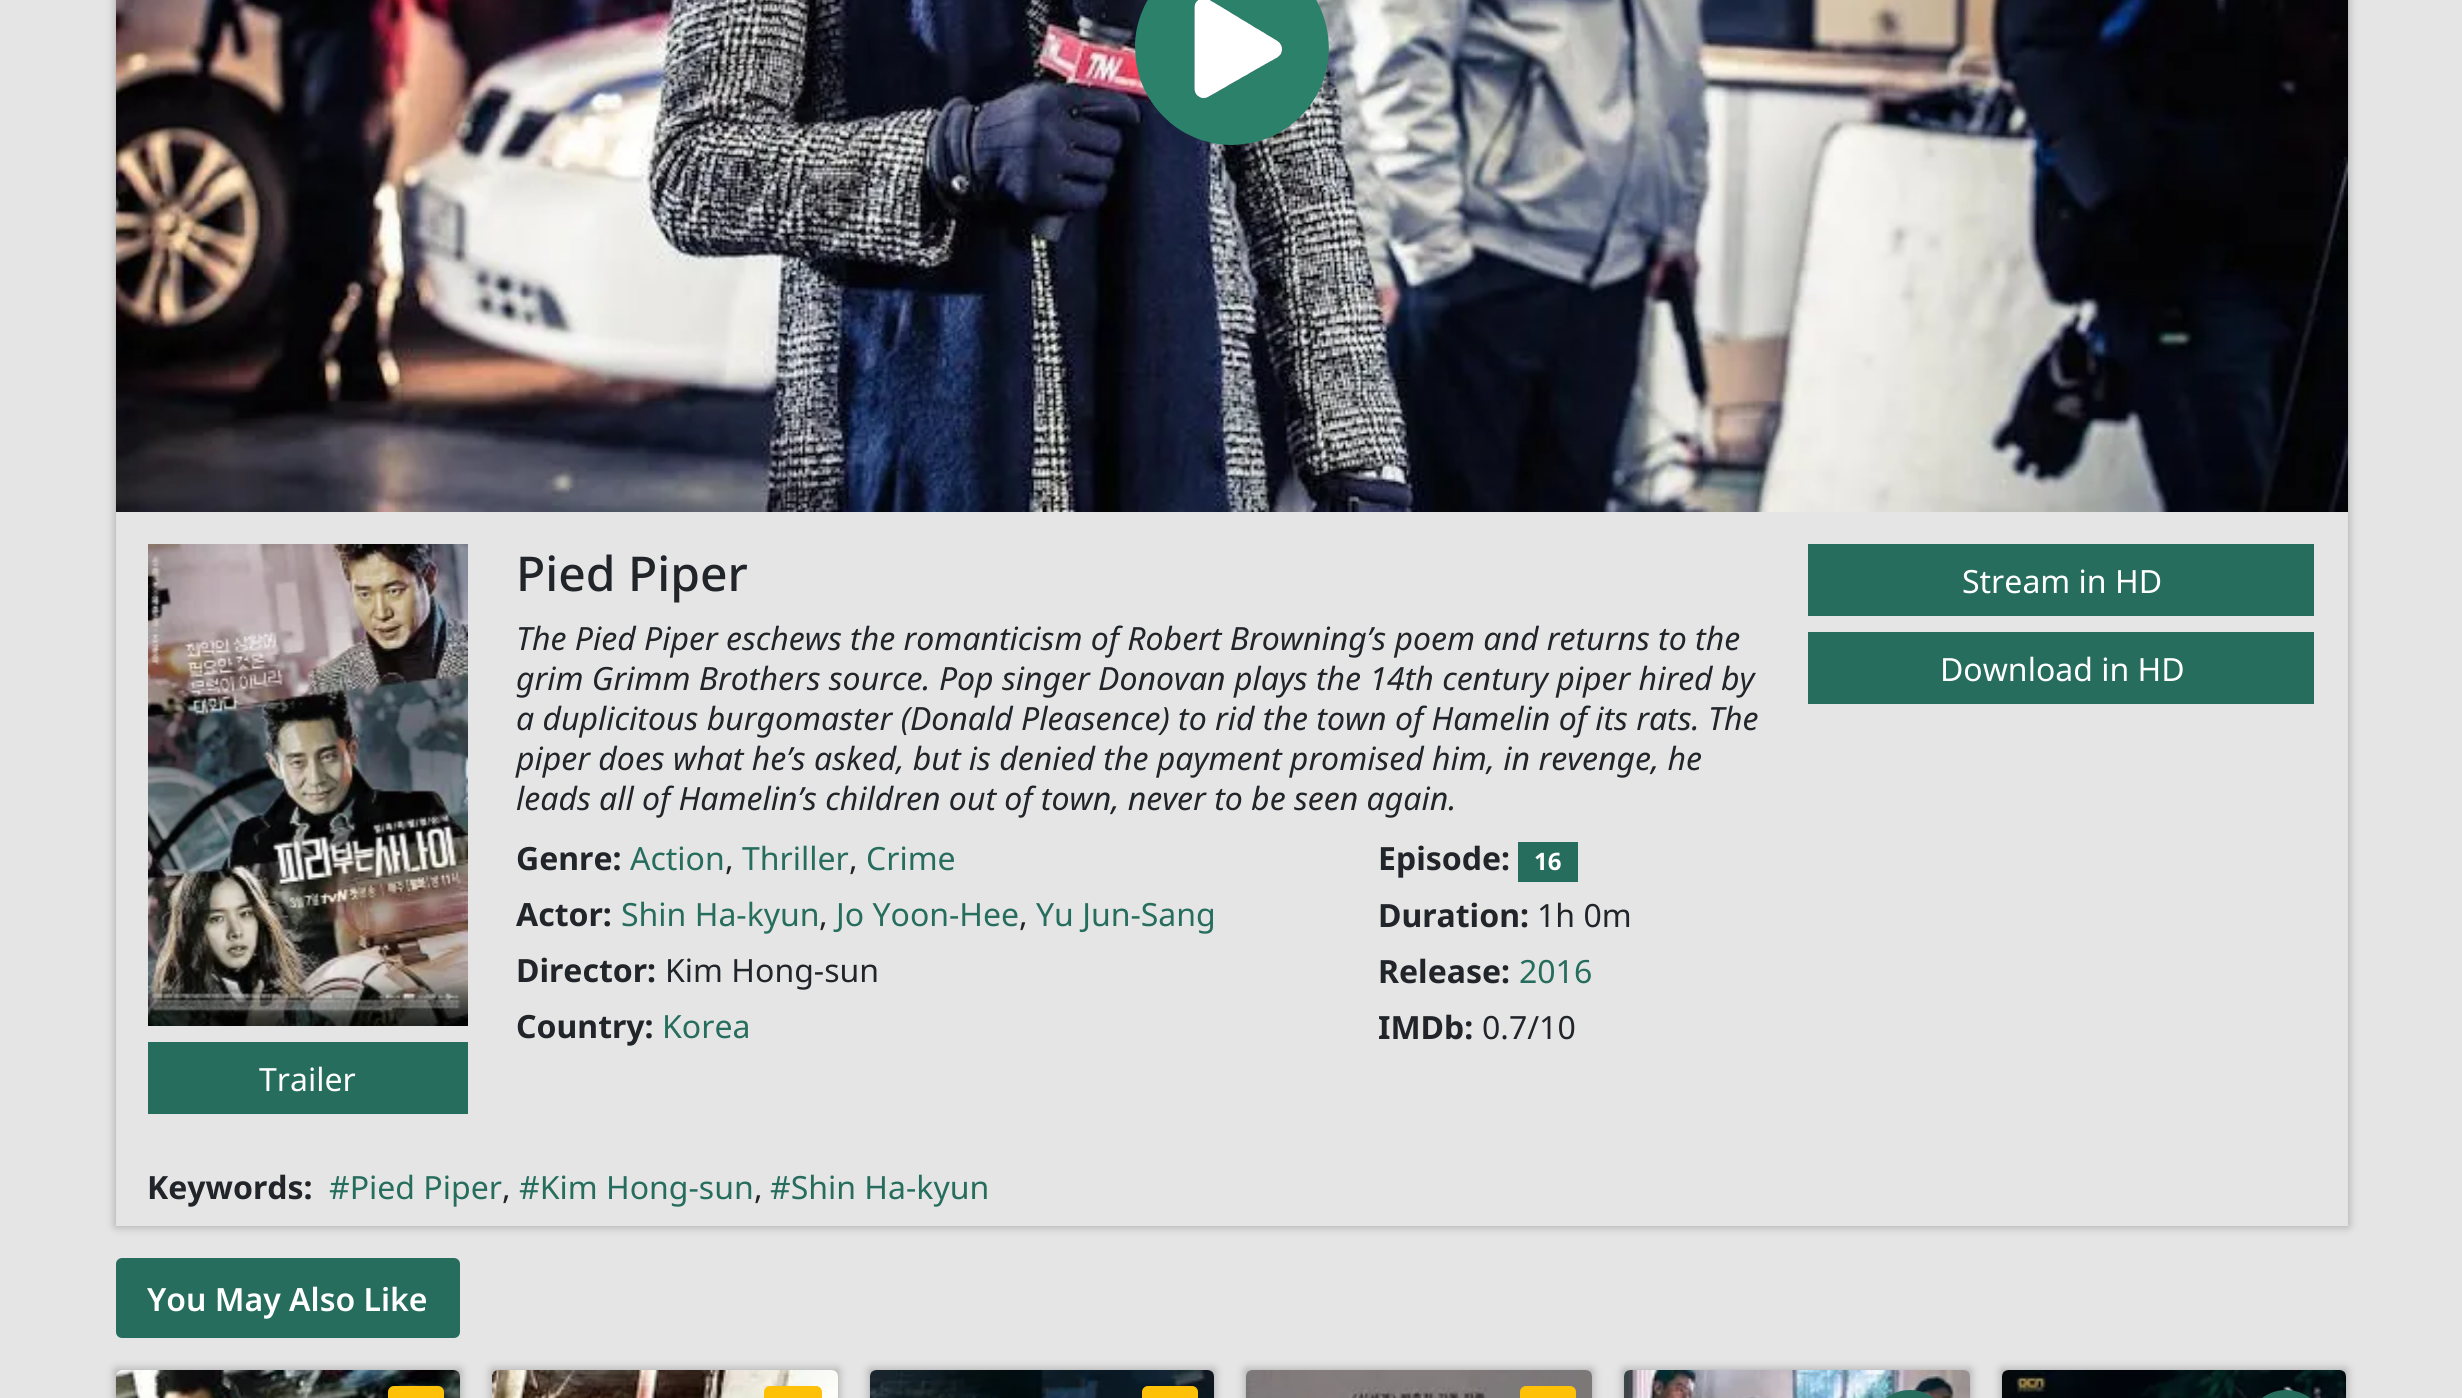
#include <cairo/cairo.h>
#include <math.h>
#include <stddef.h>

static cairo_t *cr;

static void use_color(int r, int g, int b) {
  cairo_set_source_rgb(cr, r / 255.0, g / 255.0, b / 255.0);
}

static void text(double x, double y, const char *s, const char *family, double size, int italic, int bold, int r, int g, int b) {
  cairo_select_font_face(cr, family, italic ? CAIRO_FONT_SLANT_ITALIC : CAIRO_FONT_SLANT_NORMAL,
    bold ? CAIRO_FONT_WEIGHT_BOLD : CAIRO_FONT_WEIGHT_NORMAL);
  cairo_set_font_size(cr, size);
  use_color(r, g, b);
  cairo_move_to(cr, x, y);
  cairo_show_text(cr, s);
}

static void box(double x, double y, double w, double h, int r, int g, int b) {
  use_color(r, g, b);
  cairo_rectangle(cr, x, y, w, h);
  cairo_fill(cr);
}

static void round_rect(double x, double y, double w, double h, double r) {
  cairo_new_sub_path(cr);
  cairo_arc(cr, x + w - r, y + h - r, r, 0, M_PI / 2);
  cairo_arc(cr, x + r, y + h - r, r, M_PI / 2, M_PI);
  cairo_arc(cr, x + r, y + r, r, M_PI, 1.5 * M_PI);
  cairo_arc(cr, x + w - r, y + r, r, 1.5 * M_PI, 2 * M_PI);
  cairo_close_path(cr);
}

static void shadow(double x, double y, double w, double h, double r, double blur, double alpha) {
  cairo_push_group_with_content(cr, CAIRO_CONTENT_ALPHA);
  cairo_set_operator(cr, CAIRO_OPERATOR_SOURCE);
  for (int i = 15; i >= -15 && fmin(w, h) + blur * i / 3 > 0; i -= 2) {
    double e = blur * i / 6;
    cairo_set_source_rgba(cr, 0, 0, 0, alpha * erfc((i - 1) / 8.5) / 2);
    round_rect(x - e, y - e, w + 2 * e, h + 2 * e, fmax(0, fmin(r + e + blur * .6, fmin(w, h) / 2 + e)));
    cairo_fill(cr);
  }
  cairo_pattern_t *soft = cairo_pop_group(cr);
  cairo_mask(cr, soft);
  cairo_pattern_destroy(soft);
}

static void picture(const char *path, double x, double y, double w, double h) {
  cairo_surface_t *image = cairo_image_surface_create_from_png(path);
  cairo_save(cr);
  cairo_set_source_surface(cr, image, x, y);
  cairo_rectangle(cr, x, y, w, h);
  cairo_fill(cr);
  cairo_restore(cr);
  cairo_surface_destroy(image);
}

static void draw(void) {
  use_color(229, 229, 229);
  cairo_paint(cr);
  cairo_save(cr);
  cairo_set_fill_rule(cr, CAIRO_FILL_RULE_EVEN_ODD);
  cairo_new_path(cr);
  cairo_move_to(cr, 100, 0);
  cairo_line_to(cr, 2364, 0);
  cairo_line_to(cr, 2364, 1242);
  cairo_line_to(cr, 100, 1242);
  cairo_close_path(cr);
  cairo_move_to(cr, 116, -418);
  cairo_line_to(cr, 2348, -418);
  cairo_line_to(cr, 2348, 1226);
  cairo_line_to(cr, 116, 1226);
  cairo_close_path(cr);
  cairo_clip(cr);
  use_color(0, 0, 0);
  shadow(116, -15, 2232, 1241, 0, 5, 0.3);
  cairo_restore(cr);
  picture("img_01.png", 116, 0, 2232, 512);
  picture("img_02.png", 1135, 0, 194, 145);
  box(1518, 842, 60, 40, 38, 109, 93);
  box(1808, 544, 506, 72, 38, 109, 93);
  box(1808, 632, 506, 72, 38, 109, 93);
  picture("img_03.png", 148, 544, 320, 482);
  box(148, 1042, 320, 72, 38, 109, 93);
  round_rect(116, 1258, 344, 80, 6);
  cairo_fill(cr);
  use_color(0, 0, 0);
  shadow(116, 1370, 344, 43, 0, 5, 0.3);
  picture("img_04.png", 116, 1370, 344, 28);
  use_color(255, 193, 7);
  round_rect(388, 1386, 56, 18, 6);
  cairo_fill(cr);
  use_color(0, 0, 0);
  shadow(492, 1370, 346, 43, 0, 5, 0.3);
  picture("img_05.png", 492, 1370, 346, 28);
  use_color(255, 193, 7);
  round_rect(764, 1386, 58, 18, 6);
  cairo_fill(cr);
  use_color(0, 0, 0);
  shadow(870, 1370, 344, 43, 0, 5, 0.3);
  picture("img_06.png", 870, 1370, 344, 28);
  use_color(255, 193, 7);
  round_rect(1142, 1386, 56, 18, 6);
  cairo_fill(cr);
  use_color(0, 0, 0);
  shadow(1246, 1370, 346, 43, 0, 5, 0.3);
  picture("img_07.png", 1246, 1370, 346, 28);
  use_color(255, 193, 7);
  round_rect(1520, 1386, 56, 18, 6);
  cairo_fill(cr);
  use_color(0, 0, 0);
  shadow(1624, 1370, 346, 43, 0, 5, 0.3);
  picture("img_08.png", 1624, 1370, 346, 28);
  use_color(38, 109, 93);
  round_rect(1870, 1390, 80, 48, 40);
  cairo_fill(cr);
  use_color(0, 0, 0);
  shadow(2002, 1370, 344, 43, 0, 5, 0.3);
  picture("img_09.png", 2002, 1370, 344, 28);
  use_color(38, 109, 93);
  round_rect(2246, 1390, 80, 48, 40);
  cairo_fill(cr);
  text(516, 591, "Pied Piper", "Noto Sans Medium", 48, 0, 0, 33, 37, 41);
  text(516, 650, "The Pied Piper eschews the romanticism of Robert Browning’s poem and returns to the", "Noto Sans", 32, 1, 0, 33, 37, 41);
  text(516, 690, "grim Grimm Brothers source. Pop singer Donovan plays the 14th century piper hired by", "Noto Sans", 32, 1, 0, 33, 37, 41);
  text(516, 730, "a duplicitous burgomaster (Donald Pleasence) to rid the town of Hamelin of its rats. The", "Noto Sans", 32, 1, 0, 33, 37, 41);
  text(516, 770, "piper does what he’s asked, but is denied the payment promised him, in revenge, he", "Noto Sans", 32, 1, 0, 33, 37, 41);
  text(516, 810, "leads all of Hamelin’s children out of town, never to be seen again.", "Noto Sans", 32, 1, 0, 33, 37, 41);
  text(516, 870, "Genre:", "Noto Sans", 32, 0, 1, 33, 37, 41);
  text(630, 870, "Action", "Noto Sans", 32, 0, 0, 38, 109, 93);
  text(725, 870, ",", "Noto Sans", 32, 0, 0, 33, 37, 41);
  text(742, 870, "Thriller", "Noto Sans", 32, 0, 0, 38, 109, 93);
  text(849, 870, ",", "Noto Sans", 32, 0, 0, 33, 37, 41);
  text(866, 870, "Crime", "Noto Sans", 32, 0, 0, 38, 109, 93);
  text(516, 926, "Actor:", "Noto Sans", 32, 0, 1, 33, 37, 41);
  text(621, 926, "Shin Ha-kyun", "Noto Sans", 32, 0, 0, 38, 109, 93);
  text(819, 926, ",", "Noto Sans", 32, 0, 0, 33, 37, 41);
  text(836, 926, "Jo Yoon-Hee", "Noto Sans", 32, 0, 0, 38, 109, 93);
  text(1019, 926, ",", "Noto Sans", 32, 0, 0, 33, 37, 41);
  text(1036, 926, "Yu Jun-Sang", "Noto Sans", 32, 0, 0, 38, 109, 93);
  text(516, 982, "Director:", "Noto Sans", 32, 0, 1, 33, 37, 41);
  text(665, 982, "Kim Hong-sun", "Noto Sans", 32, 0, 0, 33, 37, 41);
  text(516, 1038, "Country:", "Noto Sans", 32, 0, 1, 33, 37, 41);
  text(662, 1038, "Korea", "Noto Sans", 32, 0, 0, 38, 109, 93);
  text(1378, 870, "Episode:", "Noto Sans", 32, 0, 1, 33, 37, 41);
  text(1534, 870, "16", "Noto Sans", 24, 0, 1, 255, 255, 255);
  text(1378, 927, "Duration:", "Noto Sans", 32, 0, 1, 33, 37, 41);
  text(1537, 927, "1h 0m", "Noto Sans", 32, 0, 0, 33, 37, 41);
  text(1378, 983, "Release:", "Noto Sans", 32, 0, 1, 33, 37, 41);
  text(1519, 983, "2016", "Noto Sans", 32, 0, 0, 38, 109, 93);
  text(1378, 1039, "IMDb:", "Noto Sans", 32, 0, 1, 33, 37, 41);
  text(1482, 1039, "0.7/10", "Noto Sans", 32, 0, 0, 33, 37, 41);
  text(1962, 593, "Stream in HD", "Noto Sans", 32, 0, 0, 255, 255, 255);
  text(1940, 681, "Download in HD", "Noto Sans", 32, 0, 0, 255, 255, 255);
  text(259, 1091, "Trailer", "Noto Sans", 32, 0, 0, 255, 255, 255);
  text(147, 1199, "Keywords:", "Noto Sans", 32, 0, 1, 33, 37, 41);
  text(329, 1199, "#Pied Piper", "Noto Sans", 32, 0, 0, 38, 109, 93);
  text(502, 1199, ",", "Noto Sans", 32, 0, 0, 33, 37, 41);
  text(519, 1199, "#Kim Hong-sun", "Noto Sans", 32, 0, 0, 38, 109, 93);
  text(754, 1199, ",", "Noto Sans", 32, 0, 0, 33, 37, 41);
  text(770, 1199, "#Shin Ha-kyun", "Noto Sans", 32, 0, 0, 38, 109, 93);
  text(147, 1311, "You May Also Like", "Noto Sans SemiBold", 32, 0, 0, 255, 255, 255);
}

int main(void) {
  cairo_surface_t *surface = cairo_image_surface_create(CAIRO_FORMAT_RGB24, 2462, 1398);
  cr = cairo_create(surface);
  cairo_font_options_t *options = cairo_font_options_create();
  cairo_font_options_set_hint_metrics(options, CAIRO_HINT_METRICS_OFF);
  cairo_font_options_set_hint_style(options, CAIRO_HINT_STYLE_NONE);
  cairo_set_font_options(cr, options);
  cairo_set_miter_limit(cr, 4);
  draw();
  cairo_surface_write_to_png(surface, "out.png");
  cairo_font_options_destroy(options);
  cairo_destroy(cr);
  cairo_surface_destroy(surface);
  return 0;
}
